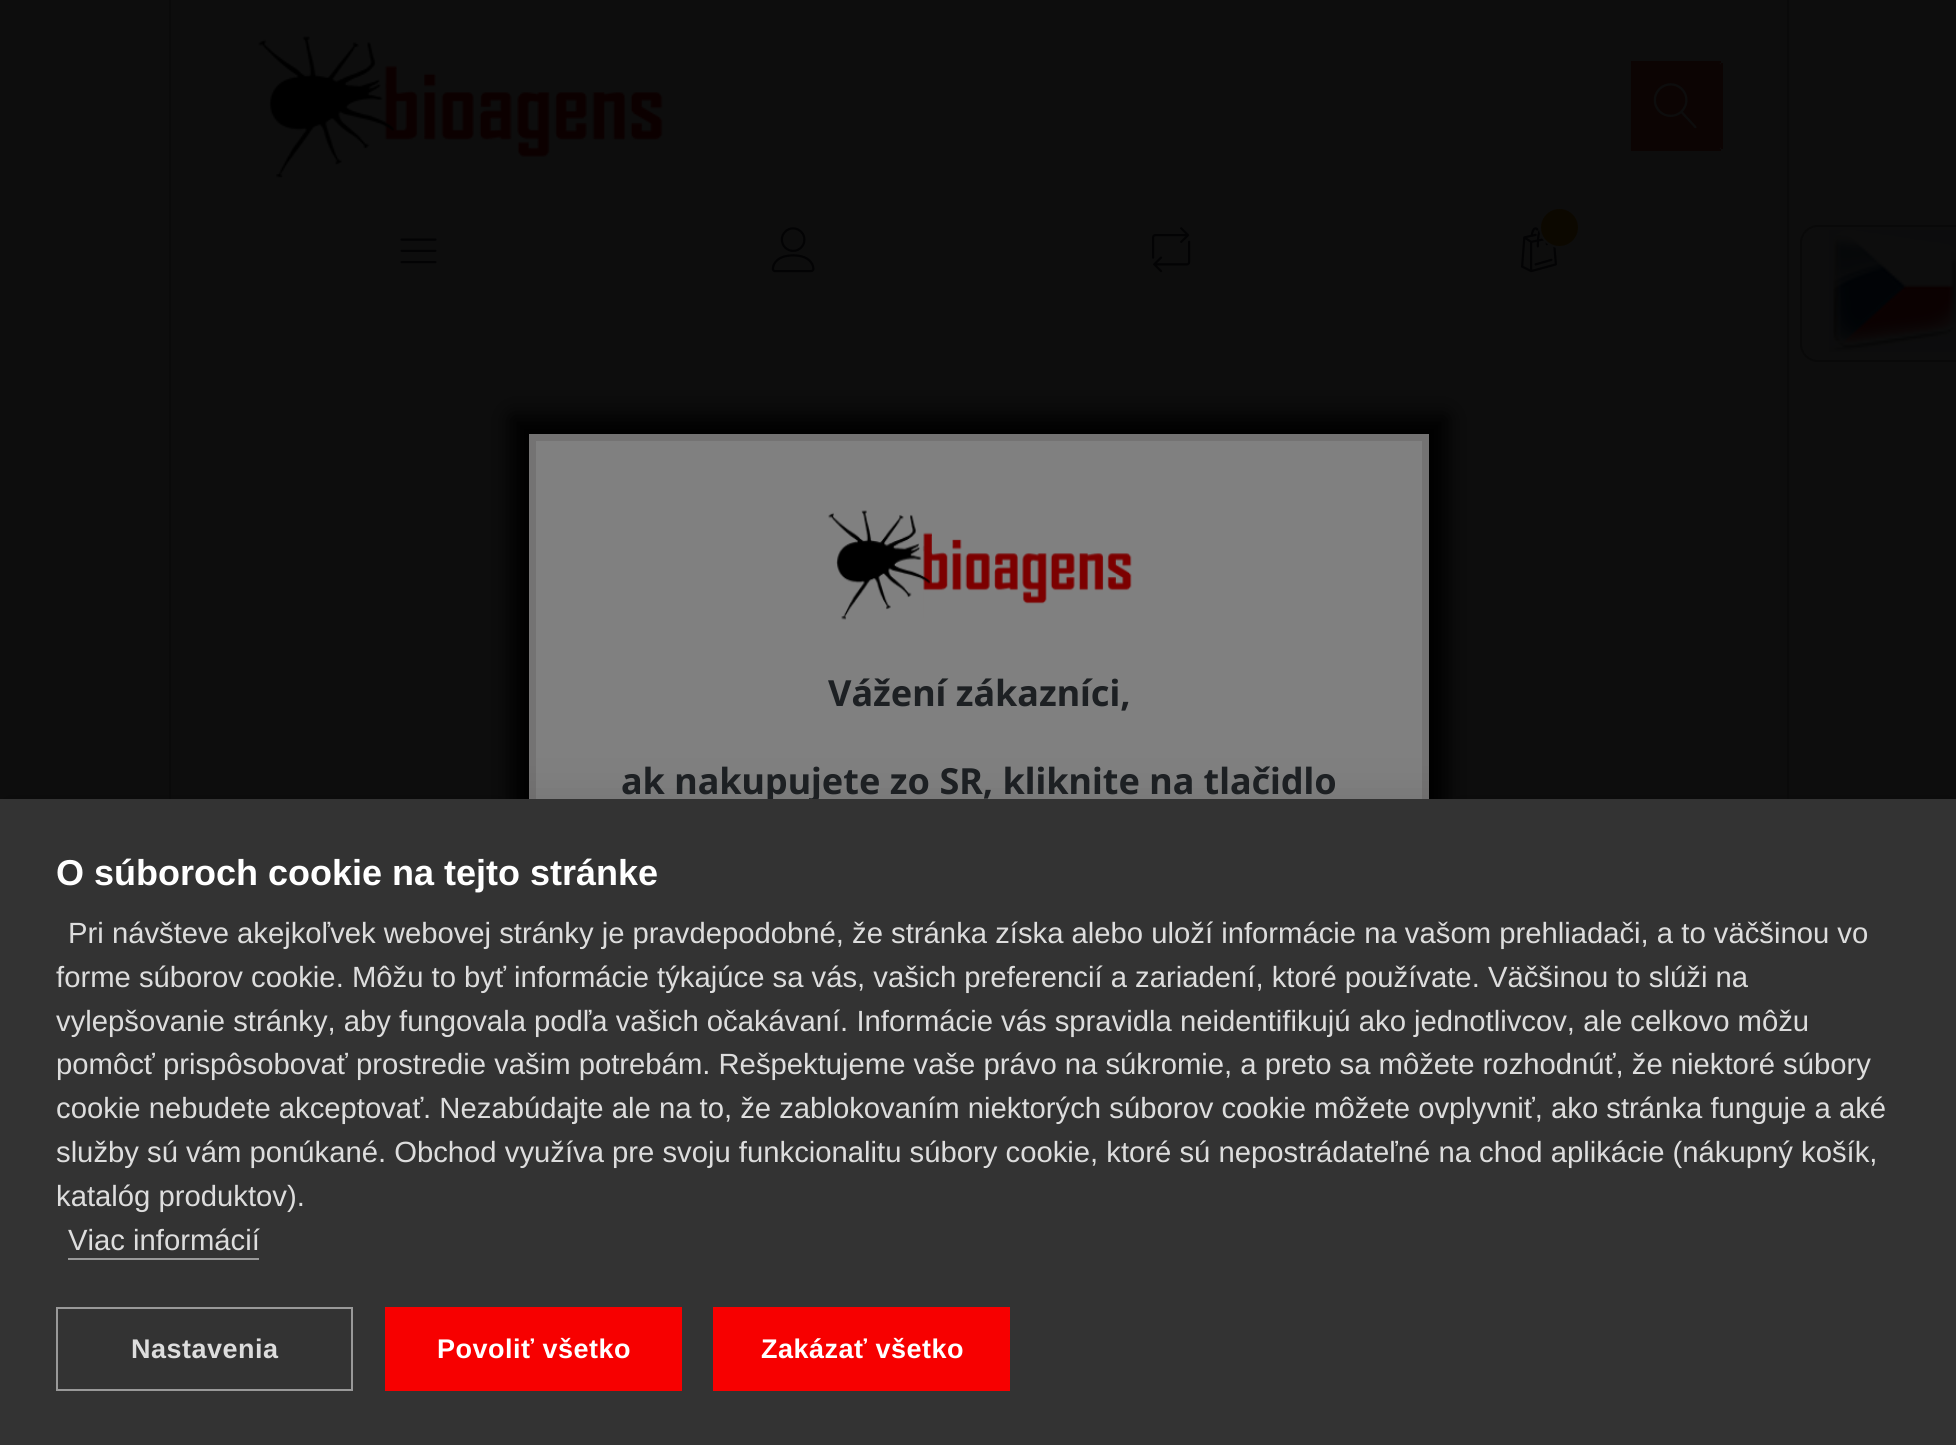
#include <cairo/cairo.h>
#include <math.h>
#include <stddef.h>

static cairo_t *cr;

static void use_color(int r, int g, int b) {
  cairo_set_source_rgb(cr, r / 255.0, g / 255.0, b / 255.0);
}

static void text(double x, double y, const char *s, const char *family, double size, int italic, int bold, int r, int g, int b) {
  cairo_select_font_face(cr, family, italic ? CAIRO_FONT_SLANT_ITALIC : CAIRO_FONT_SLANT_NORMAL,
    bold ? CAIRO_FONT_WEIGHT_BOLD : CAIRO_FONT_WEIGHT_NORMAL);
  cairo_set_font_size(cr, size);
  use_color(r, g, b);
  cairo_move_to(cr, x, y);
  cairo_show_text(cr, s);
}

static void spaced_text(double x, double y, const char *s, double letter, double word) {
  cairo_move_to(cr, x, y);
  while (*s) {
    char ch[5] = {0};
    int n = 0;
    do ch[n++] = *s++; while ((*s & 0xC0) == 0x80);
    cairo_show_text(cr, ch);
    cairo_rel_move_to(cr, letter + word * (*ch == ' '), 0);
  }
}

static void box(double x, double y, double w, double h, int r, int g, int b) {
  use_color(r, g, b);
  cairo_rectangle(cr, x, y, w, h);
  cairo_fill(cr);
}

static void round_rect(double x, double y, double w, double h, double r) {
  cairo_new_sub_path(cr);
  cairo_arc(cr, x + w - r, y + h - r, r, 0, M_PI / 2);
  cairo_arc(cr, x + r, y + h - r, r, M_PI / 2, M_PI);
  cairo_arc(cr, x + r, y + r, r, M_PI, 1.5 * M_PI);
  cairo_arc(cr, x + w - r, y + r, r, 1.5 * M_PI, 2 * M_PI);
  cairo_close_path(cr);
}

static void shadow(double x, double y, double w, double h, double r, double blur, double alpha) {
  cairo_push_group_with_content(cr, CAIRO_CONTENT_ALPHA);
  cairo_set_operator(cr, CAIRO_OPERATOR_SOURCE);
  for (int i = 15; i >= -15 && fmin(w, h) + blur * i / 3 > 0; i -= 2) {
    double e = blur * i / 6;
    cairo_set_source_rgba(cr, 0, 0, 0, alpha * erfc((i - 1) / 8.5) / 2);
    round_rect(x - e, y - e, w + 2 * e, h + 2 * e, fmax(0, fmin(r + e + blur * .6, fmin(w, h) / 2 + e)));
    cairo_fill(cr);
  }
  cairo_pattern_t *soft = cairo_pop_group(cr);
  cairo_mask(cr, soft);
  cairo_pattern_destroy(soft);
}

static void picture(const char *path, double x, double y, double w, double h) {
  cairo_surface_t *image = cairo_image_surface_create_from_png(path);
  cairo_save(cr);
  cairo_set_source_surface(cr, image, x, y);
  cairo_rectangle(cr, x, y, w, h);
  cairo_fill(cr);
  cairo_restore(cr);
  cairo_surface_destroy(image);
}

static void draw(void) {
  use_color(13, 13, 13);
  cairo_paint(cr);
  box(1787, 0, 2, 799, 10, 10, 10);
  box(169, 0, 2, 799, 10, 10, 10);
  picture("img_01.png", 258, 36, 405, 142);
  use_color(12, 4, 3);
  cairo_new_path(cr);
  cairo_move_to(cr, 1631, 63);
  cairo_line_to(cr, 1719, 63);
  cairo_curve_to(cr, 1720, 63, 1721, 64, 1721, 65);
  cairo_line_to(cr, 1721, 147);
  cairo_curve_to(cr, 1721, 148, 1720, 149, 1719, 149);
  cairo_line_to(cr, 1631, 149);
  cairo_close_path(cr);
  cairo_fill(cr);
  box(1631, 61, 90, 2, 12, 4, 3);
  box(1721, 63, 2, 86, 12, 4, 3);
  box(1631, 149, 90, 2, 12, 4, 3);
  picture("img_02.png", 1653, 83, 44, 46);
  picture("img_03.png", 400, 238, 37, 26);
  picture("img_04.png", 771, 227, 44, 46);
  picture("img_05.png", 1152, 227, 39, 46);
  picture("img_06.png", 1521, 227, 36, 46);
  use_color(12, 8, 0);
  cairo_arc(cr, 1559.5, 227.5, 19.5, 0, 2 * M_PI);
  cairo_fill_preserve(cr);
  use_color(13, 13, 13);
  cairo_stroke(cr);
  picture("img_07.png", 1829, 230, 127, 122);
  cairo_new_path(cr);
  cairo_move_to(cr, 1818, 226);
  cairo_line_to(cr, 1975, 226);
  cairo_line_to(cr, 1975, 361);
  cairo_line_to(cr, 1818, 361);
  cairo_curve_to(cr, 1808.5, 361, 1801, 353.5, 1801, 344);
  cairo_line_to(cr, 1801, 243);
  cairo_curve_to(cr, 1801, 233.5, 1808.5, 226, 1818, 226);
  cairo_close_path(cr);
  use_color(9, 9, 9);
  cairo_stroke(cr);
  use_color(0, 0, 0);
  shadow(511, 416, 936, 797, 0, 11, 1);
  box(536, 441, 886, 358, 128, 128, 128);
  cairo_rectangle(cr, 532.5, 437.5, 893, 754);
  use_color(116, 115, 115);
  cairo_set_line_width(cr, 7);
  cairo_stroke(cr);
  picture("img_08.png", 828, 510, 304, 110);
  use_color(0, 0, 0);
  shadow(0, 799, 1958, 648, 0, 22.5, 0.1);
  text(828, 706, "Vážení zákazníci,", "Noto Sans", 36, 0, 1, 29, 32, 35);
  text(621, 794, "ak nakupujete zo SR, kliknite na tlačidlo", "Noto Sans", 36, 0, 1, 29, 32, 35);
  box(0, 799, 1956, 646, 51, 51, 51);
  text(56, 885, "O súboroch cookie na tejto stránke", "Liberation Sans", 36, 0, 1, 255, 255, 255);
  text(68, 943, "Pri návšteve akejkoľvek webovej stránky je pravdepodobné, že stránka získa alebo uloží informácie na vašom prehliadači, a to väčšinou vo", "Liberation Sans", 29.25, 0, 0, 221, 221, 221);
  text(56, 987, "forme súborov cookie. Môžu to byť informácie týkajúce sa vás, vašich preferencií a zariadení, ktoré používate. Väčšinou to slúži na", "Liberation Sans", 29.25, 0, 0, 221, 221, 221);
  text(56, 1031, "vylepšovanie stránky, aby fungovala podľa vašich očakávaní. Informácie vás spravidla neidentifikujú ako jednotlivcov, ale celkovo môžu", "Liberation Sans", 29.25, 0, 0, 221, 221, 221);
  text(56, 1074, "pomôcť prispôsobovať prostredie vašim potrebám. Rešpektujeme vaše právo na súkromie, a preto sa môžete rozhodnúť, že niektoré súbory", "Liberation Sans", 29.25, 0, 0, 221, 221, 221);
  text(56, 1118, "cookie nebudete akceptovať. Nezabúdajte ale na to, že zablokovaním niektorých súborov cookie môžete ovplyvniť, ako stránka funguje a aké", "Liberation Sans", 29.25, 0, 0, 221, 221, 221);
  text(56, 1162, "služby sú vám ponúkané. Obchod využíva pre svoju funkcionalitu súbory cookie, ktoré sú nepostrádateľné na chod aplikácie (nákupný košík,", "Liberation Sans", 29.25, 0, 0, 221, 221, 221);
  text(56, 1206, "katalóg produktov).", "Liberation Sans", 29.25, 0, 0, 221, 221, 221);
  text(68, 1250, "Viac informácií", "Liberation Sans", 29.25, 0, 0, 221, 221, 221);
  box(68, 1258, 191, 2, 153, 153, 153);
  cairo_rectangle(cr, 57, 1308, 295, 82);
  cairo_set_line_width(cr, 2);
  cairo_stroke(cr);
  cairo_select_font_face(cr, "Liberation Sans", CAIRO_FONT_SLANT_NORMAL, CAIRO_FONT_WEIGHT_BOLD);
  cairo_set_font_size(cr, 27);
  use_color(221, 221, 221);
  spaced_text(131, 1358, "Nastavenia", 0.5, 0);
  box(385, 1307, 297, 84, 247, 0, 0);
  use_color(255, 255, 255);
  spaced_text(437, 1358, "Povoliť všetko", 0.5, 0);
  box(713, 1307, 297, 84, 247, 0, 0);
  use_color(255, 255, 255);
  spaced_text(761, 1358, "Zakázať všetko", 0.5, 0);
}

int main(void) {
  cairo_surface_t *surface = cairo_image_surface_create(CAIRO_FORMAT_RGB24, 1956, 1445);
  cr = cairo_create(surface);
  cairo_font_options_t *options = cairo_font_options_create();
  cairo_font_options_set_hint_metrics(options, CAIRO_HINT_METRICS_OFF);
  cairo_font_options_set_hint_style(options, CAIRO_HINT_STYLE_NONE);
  cairo_set_font_options(cr, options);
  cairo_set_miter_limit(cr, 4);
  draw();
  cairo_surface_write_to_png(surface, "out.png");
  cairo_font_options_destroy(options);
  cairo_destroy(cr);
  cairo_surface_destroy(surface);
  return 0;
}
